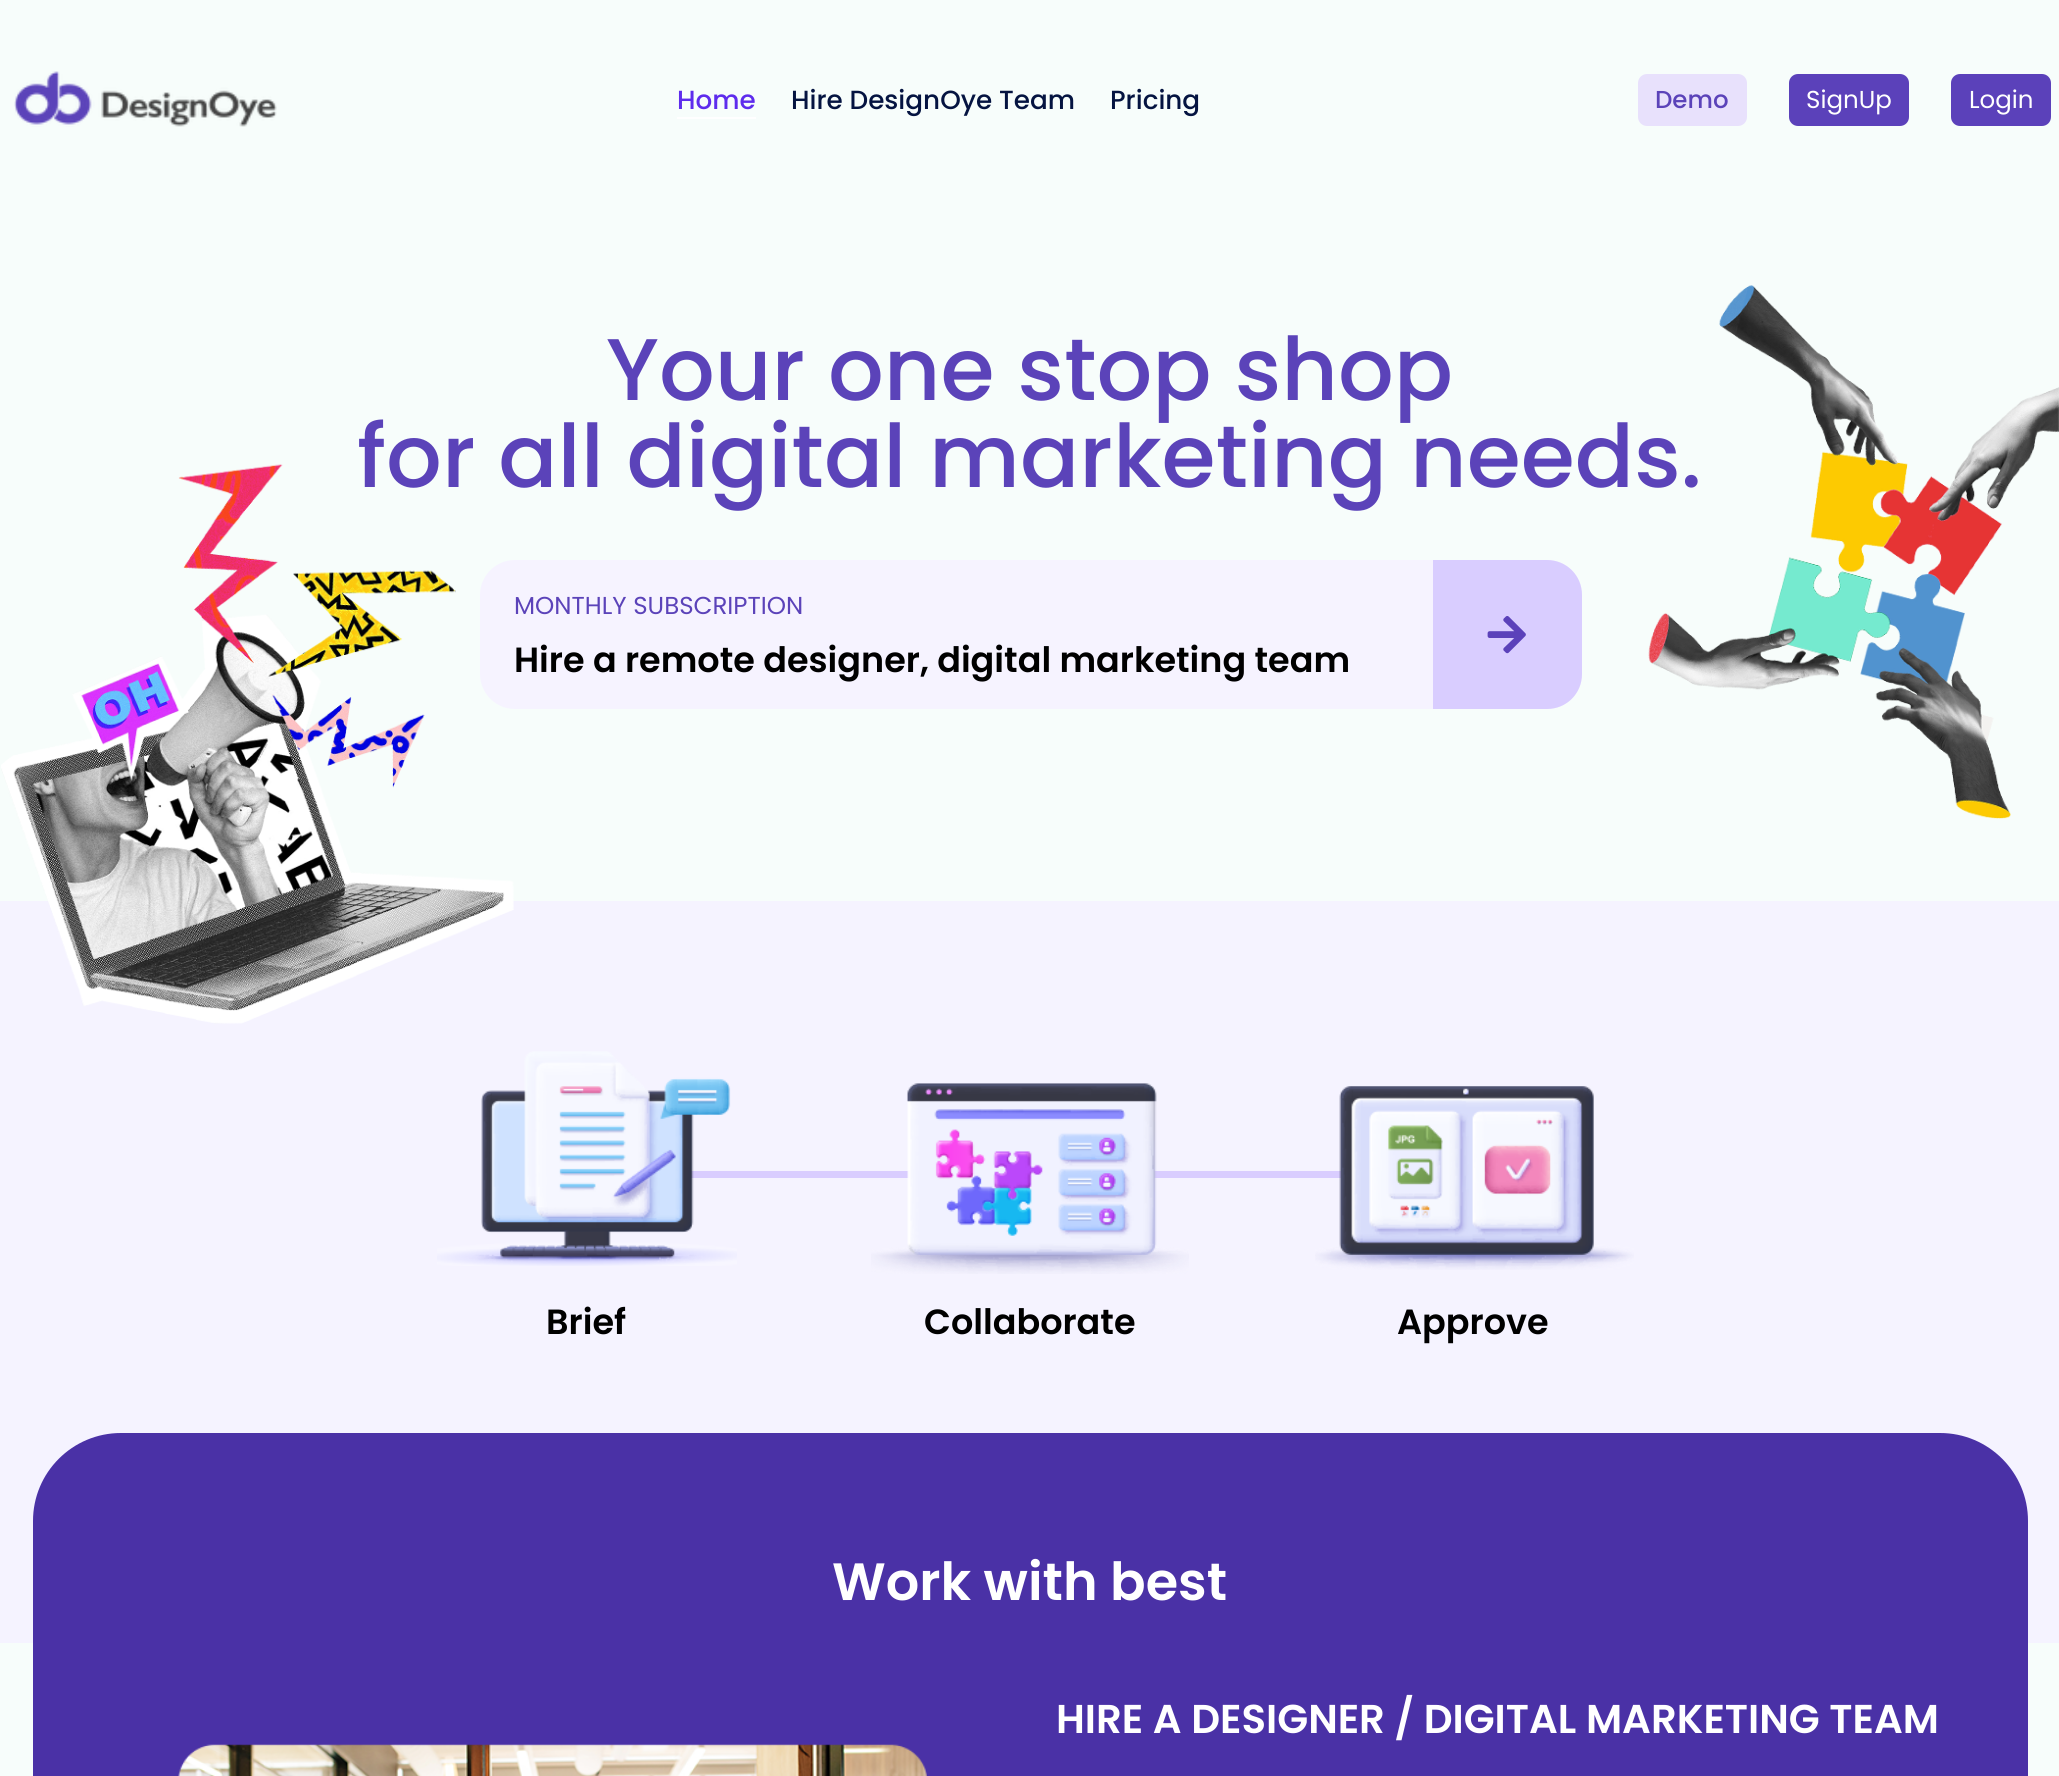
#include <cairo/cairo.h>
#include <math.h>
#include <stddef.h>

static cairo_t *cr;

static void use_color(int r, int g, int b) {
  cairo_set_source_rgb(cr, r / 255.0, g / 255.0, b / 255.0);
}

static void text(double x, double y, const char *s, const char *family, double size, int italic, int bold, int r, int g, int b) {
  cairo_select_font_face(cr, family, italic ? CAIRO_FONT_SLANT_ITALIC : CAIRO_FONT_SLANT_NORMAL,
    bold ? CAIRO_FONT_WEIGHT_BOLD : CAIRO_FONT_WEIGHT_NORMAL);
  cairo_set_font_size(cr, size);
  use_color(r, g, b);
  cairo_move_to(cr, x, y);
  cairo_show_text(cr, s);
}

static void box(double x, double y, double w, double h, int r, int g, int b) {
  use_color(r, g, b);
  cairo_rectangle(cr, x, y, w, h);
  cairo_fill(cr);
}

static void round_rect(double x, double y, double w, double h, double r) {
  cairo_new_sub_path(cr);
  cairo_arc(cr, x + w - r, y + h - r, r, 0, M_PI / 2);
  cairo_arc(cr, x + r, y + h - r, r, M_PI / 2, M_PI);
  cairo_arc(cr, x + r, y + r, r, M_PI, 1.5 * M_PI);
  cairo_arc(cr, x + w - r, y + r, r, 1.5 * M_PI, 2 * M_PI);
  cairo_close_path(cr);
}

static void picture(const char *path, double x, double y, double w, double h) {
  cairo_surface_t *image = cairo_image_surface_create_from_png(path);
  cairo_save(cr);
  cairo_set_source_surface(cr, image, x, y);
  cairo_rectangle(cr, x, y, w, h);
  cairo_fill(cr);
  cairo_restore(cr);
  cairo_surface_destroy(image);
}

static void draw(void) {
  use_color(247, 253, 251);
  cairo_paint(cr);
  picture("img_01.png", 14, 71, 263, 56);
  box(677, 117, 79, 2, 255, 255, 255);
  use_color(232, 225, 252);
  round_rect(1638, 74, 109, 52, 9);
  cairo_fill(cr);
  use_color(91, 65, 186);
  round_rect(1789, 74, 120, 52, 9);
  cairo_fill(cr);
  round_rect(1951, 74, 100, 52, 9);
  cairo_fill(cr);
  use_color(246, 243, 255);
  round_rect(480, 560, 1102, 149, 35);
  cairo_fill(cr);
  use_color(217, 205, 255);
  cairo_new_path(cr);
  cairo_move_to(cr, 1433, 560);
  cairo_line_to(cr, 1547, 560);
  cairo_curve_to(cr, 1566.5, 560, 1582, 575.5, 1582, 595);
  cairo_line_to(cr, 1582, 674);
  cairo_curve_to(cr, 1582, 693.5, 1566.5, 709, 1547, 709);
  cairo_line_to(cr, 1433, 709);
  cairo_close_path(cr);
  cairo_fill(cr);
  picture("img_04.png", 1487, 616, 39, 38);
  box(0, 901, 2059, 742, 245, 243, 255);
  box(691, 1171, 650, 7, 217, 205, 255);
  picture("img_05.png", 437, 1051, 300, 215);
  picture("img_06.png", 871, 1083, 318, 191);
  picture("img_07.png", 1315, 1086, 319, 184);
  use_color(74, 49, 166);
  round_rect(33, 1433, 1995, 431, 88);
  cairo_fill(cr);
  picture("img_08.png", 178, 1744, 749, 32);
  text(677, 109, "Home", "Poppins Medium", 26.25, 0, 0, 94, 44, 237);
  text(791, 109, "Hire DesignOye Team", "Poppins Medium", 26.25, 0, 0, 5, 20, 65);
  text(1110, 109, "Pricing", "Poppins Medium", 26.25, 0, 0, 5, 20, 65);
  text(1655, 108, "Demo", "Poppins Medium", 24.5, 0, 0, 91, 67, 185);
  text(1806, 108, "SignUp", "Poppins", 24.5, 0, 0, 255, 255, 255);
  text(1969, 108, "Login", "Poppins", 24.5, 0, 0, 255, 255, 255);
  text(606, 400, "Your one stop shop", "Poppins Medium", 87.5, 0, 0, 91, 67, 185);
  text(357, 487, "for all digital marketing needs.", "Poppins Medium", 87.5, 0, 0, 91, 67, 185);
  picture("img_02.png", 1648, 285, 411, 534);
  picture("img_03.png", 1, 464, 513, 560);
  text(514, 614, "MONTHLY SUBSCRIPTION", "Poppins", 24.5, 0, 0, 91, 67, 185);
  text(514, 672, "Hire a remote designer, digital marketing team", "Poppins SemiBold", 35, 0, 0, 0, 0, 0);
  text(546, 1334, "Brief", "Poppins SemiBold", 35, 0, 0, 0, 0, 0);
  text(924, 1334, "Collaborate", "Poppins SemiBold", 35, 0, 0, 0, 0, 0);
  text(1397, 1334, "Approve", "Poppins SemiBold", 35, 0, 0, 0, 0, 0);
  text(832, 1600, "Work with best", "Poppins SemiBold", 52.5, 0, 0, 255, 255, 255);
  text(1056, 1733, "HIRE A DESIGNER / DIGITAL MARKETING TEAM", "Poppins SemiBold", 40.25, 0, 0, 255, 255, 255);
}

int main(void) {
  cairo_surface_t *surface = cairo_image_surface_create(CAIRO_FORMAT_RGB24, 2059, 1776);
  cr = cairo_create(surface);
  cairo_font_options_t *options = cairo_font_options_create();
  cairo_font_options_set_hint_metrics(options, CAIRO_HINT_METRICS_OFF);
  cairo_font_options_set_hint_style(options, CAIRO_HINT_STYLE_NONE);
  cairo_set_font_options(cr, options);
  cairo_set_miter_limit(cr, 4);
  draw();
  cairo_surface_write_to_png(surface, "out.png");
  cairo_font_options_destroy(options);
  cairo_destroy(cr);
  cairo_surface_destroy(surface);
  return 0;
}
